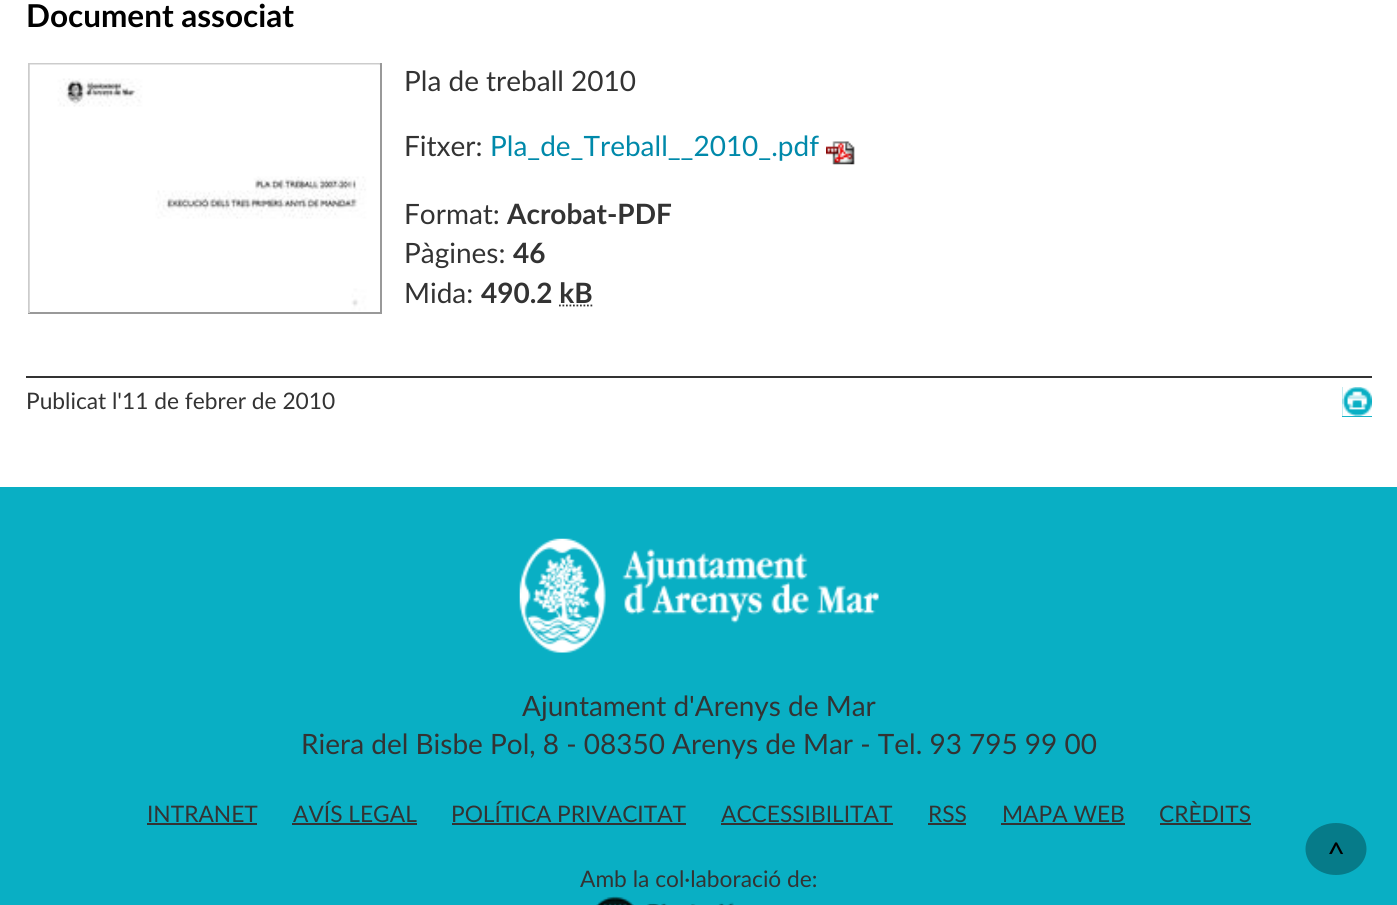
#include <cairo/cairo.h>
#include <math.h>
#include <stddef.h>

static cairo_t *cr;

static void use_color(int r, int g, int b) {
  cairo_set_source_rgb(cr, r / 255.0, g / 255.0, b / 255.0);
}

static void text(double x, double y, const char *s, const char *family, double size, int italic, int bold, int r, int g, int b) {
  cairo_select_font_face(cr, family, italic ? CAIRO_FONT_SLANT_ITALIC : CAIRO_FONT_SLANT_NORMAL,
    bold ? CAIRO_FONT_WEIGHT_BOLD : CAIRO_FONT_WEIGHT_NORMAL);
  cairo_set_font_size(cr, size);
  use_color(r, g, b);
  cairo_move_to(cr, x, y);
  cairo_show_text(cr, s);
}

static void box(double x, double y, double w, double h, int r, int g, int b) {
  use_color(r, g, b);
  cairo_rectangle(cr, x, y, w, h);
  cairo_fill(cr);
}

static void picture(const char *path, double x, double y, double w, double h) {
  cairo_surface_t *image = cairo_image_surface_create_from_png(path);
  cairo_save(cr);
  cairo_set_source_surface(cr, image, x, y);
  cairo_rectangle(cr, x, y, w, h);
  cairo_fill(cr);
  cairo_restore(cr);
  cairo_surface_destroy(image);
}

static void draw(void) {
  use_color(255, 255, 255);
  cairo_paint(cr);
  box(28, 63, 354, 2, 204, 204, 204);
  box(380, 63, 2, 250, 153, 153, 153);
  box(28, 312, 354, 2, 153, 153, 153);
  box(28, 63, 2, 250, 204, 204, 204);
  picture("img_01.png", 29, 64, 351, 247);
  picture("img_02.png", 826, 141, 29, 24);
  cairo_new_path(cr);
  cairo_move_to(cr, 559, 305.5);
  cairo_line_to(cr, 592.5, 305.5);
  use_color(51, 51, 51);
  cairo_set_line_width(cr, 1.8);
  cairo_set_dash(cr, (double[]){1.75, 1.75}, 2, 0);
  cairo_stroke(cr);
  box(26, 376, 1346, 2, 51, 51, 51);
  box(1342, 387, 30, 30, 9, 175, 196);
  picture("img_03.png", 1342, 387, 30, 30);
  box(0, 487, 1397, 418, 9, 175, 196);
  picture("img_04.png", 519, 538, 360, 115);
  box(147, 823, 110, 2, 51, 51, 51);
  box(292, 823, 125, 2, 51, 51, 51);
  box(452, 823, 234, 2, 51, 51, 51);
  box(721, 823, 172, 2, 51, 51, 51);
  box(928, 823, 38, 2, 51, 51, 51);
  box(1001, 823, 124, 2, 51, 51, 51);
  box(1160, 823, 91, 2, 51, 51, 51);
  picture("img_05.png", 596, 896, 138, 9);
  use_color(6, 123, 137);
  cairo_new_path(cr);
  cairo_move_to(cr, 1336, 823);
  cairo_curve_to(cr, 1353, 823, 1366.5, 834.5, 1366.5, 849);
  cairo_curve_to(cr, 1366.5, 863.5, 1353, 875, 1336, 875);
  cairo_curve_to(cr, 1319, 875, 1305.5, 863.5, 1305.5, 849);
  cairo_curve_to(cr, 1305.5, 834.5, 1319, 823, 1336, 823);
  cairo_close_path(cr);
  cairo_fill(cr);
  text(26, 27, "Document associat", "Lato", 31.5, 0, 1, 0, 0, 0);
  text(404, 91, "Pla de treball 2010", "Lato", 28, 0, 0, 51, 51, 51);
  text(404, 156, "Fitxer:", "Lato", 28, 0, 0, 51, 51, 51);
  text(490, 156, "Pla_de_Treball__2010_.pdf", "Lato", 28, 0, 0, 0, 137, 170);
  text(404, 224, "Format:", "Lato", 28, 0, 0, 51, 51, 51);
  text(507, 224, "Acrobat-PDF", "Lato", 28, 0, 1, 51, 51, 51);
  text(404, 263, "Pàgines:", "Lato", 28, 0, 0, 51, 51, 51);
  text(513, 263, "46", "Lato", 28, 0, 1, 51, 51, 51);
  text(404, 303, "Mida:", "Lato", 28, 0, 0, 51, 51, 51);
  text(481, 303, "490.2 kB", "Lato", 28, 0, 1, 51, 51, 51);
  text(26, 409, "Publicat l'11 de febrer de 2010", "Lato", 22.75, 0, 0, 51, 51, 51);
  text(522, 716, "Ajuntament d'Arenys de Mar", "Lato", 28, 0, 0, 51, 51, 51);
  text(301, 754, "Riera del Bisbe Pol, 8 - 08350 Arenys de Mar - Tel. 93 795 99 00", "Lato", 28, 0, 0, 51, 51, 51);
  text(147, 822, "INTRANET", "Lato", 22.75, 0, 0, 51, 51, 51);
  text(293, 822, "AVÍS LEGAL", "Lato", 22.75, 0, 0, 51, 51, 51);
  text(451, 822, "POLÍTICA PRIVACITAT", "Lato", 22.75, 0, 0, 51, 51, 51);
  text(721, 822, "ACCESSIBILITAT", "Lato", 22.75, 0, 0, 51, 51, 51);
  text(928, 822, "RSS", "Lato", 22.75, 0, 0, 51, 51, 51);
  text(1002, 822, "MAPA WEB", "Lato", 22.75, 0, 0, 51, 51, 51);
  text(1159, 822, "CRÈDITS", "Lato", 22.75, 0, 0, 51, 51, 51);
  text(580, 887, "Amb la col·laboració de:", "Lato", 22.75, 0, 0, 51, 51, 51);
  text(1327, 865, "^", "Lato", 31.5, 0, 0, 0, 0, 0);
}

int main(void) {
  cairo_surface_t *surface = cairo_image_surface_create(CAIRO_FORMAT_RGB24, 1397, 905);
  cr = cairo_create(surface);
  cairo_font_options_t *options = cairo_font_options_create();
  cairo_font_options_set_hint_metrics(options, CAIRO_HINT_METRICS_OFF);
  cairo_font_options_set_hint_style(options, CAIRO_HINT_STYLE_NONE);
  cairo_set_font_options(cr, options);
  cairo_set_miter_limit(cr, 4);
  draw();
  cairo_surface_write_to_png(surface, "out.png");
  cairo_font_options_destroy(options);
  cairo_destroy(cr);
  cairo_surface_destroy(surface);
  return 0;
}
